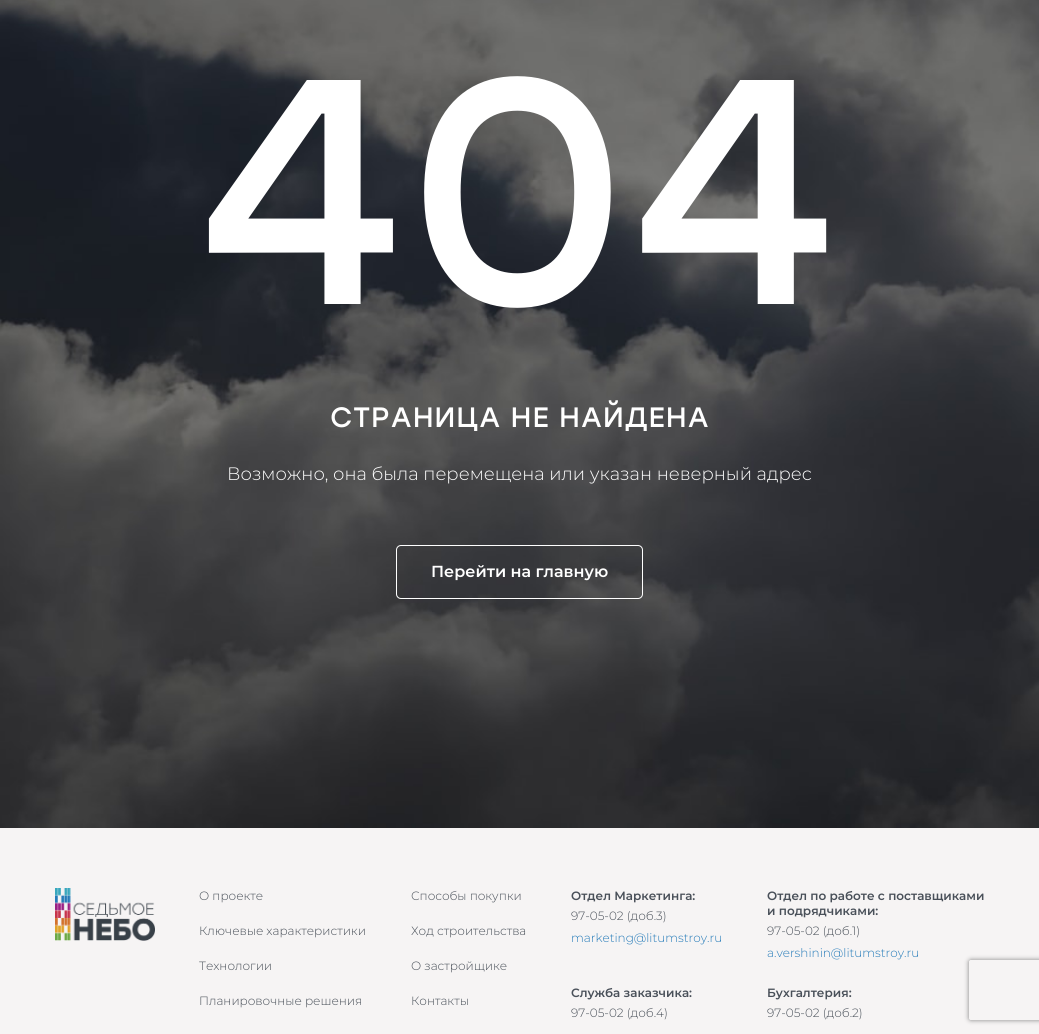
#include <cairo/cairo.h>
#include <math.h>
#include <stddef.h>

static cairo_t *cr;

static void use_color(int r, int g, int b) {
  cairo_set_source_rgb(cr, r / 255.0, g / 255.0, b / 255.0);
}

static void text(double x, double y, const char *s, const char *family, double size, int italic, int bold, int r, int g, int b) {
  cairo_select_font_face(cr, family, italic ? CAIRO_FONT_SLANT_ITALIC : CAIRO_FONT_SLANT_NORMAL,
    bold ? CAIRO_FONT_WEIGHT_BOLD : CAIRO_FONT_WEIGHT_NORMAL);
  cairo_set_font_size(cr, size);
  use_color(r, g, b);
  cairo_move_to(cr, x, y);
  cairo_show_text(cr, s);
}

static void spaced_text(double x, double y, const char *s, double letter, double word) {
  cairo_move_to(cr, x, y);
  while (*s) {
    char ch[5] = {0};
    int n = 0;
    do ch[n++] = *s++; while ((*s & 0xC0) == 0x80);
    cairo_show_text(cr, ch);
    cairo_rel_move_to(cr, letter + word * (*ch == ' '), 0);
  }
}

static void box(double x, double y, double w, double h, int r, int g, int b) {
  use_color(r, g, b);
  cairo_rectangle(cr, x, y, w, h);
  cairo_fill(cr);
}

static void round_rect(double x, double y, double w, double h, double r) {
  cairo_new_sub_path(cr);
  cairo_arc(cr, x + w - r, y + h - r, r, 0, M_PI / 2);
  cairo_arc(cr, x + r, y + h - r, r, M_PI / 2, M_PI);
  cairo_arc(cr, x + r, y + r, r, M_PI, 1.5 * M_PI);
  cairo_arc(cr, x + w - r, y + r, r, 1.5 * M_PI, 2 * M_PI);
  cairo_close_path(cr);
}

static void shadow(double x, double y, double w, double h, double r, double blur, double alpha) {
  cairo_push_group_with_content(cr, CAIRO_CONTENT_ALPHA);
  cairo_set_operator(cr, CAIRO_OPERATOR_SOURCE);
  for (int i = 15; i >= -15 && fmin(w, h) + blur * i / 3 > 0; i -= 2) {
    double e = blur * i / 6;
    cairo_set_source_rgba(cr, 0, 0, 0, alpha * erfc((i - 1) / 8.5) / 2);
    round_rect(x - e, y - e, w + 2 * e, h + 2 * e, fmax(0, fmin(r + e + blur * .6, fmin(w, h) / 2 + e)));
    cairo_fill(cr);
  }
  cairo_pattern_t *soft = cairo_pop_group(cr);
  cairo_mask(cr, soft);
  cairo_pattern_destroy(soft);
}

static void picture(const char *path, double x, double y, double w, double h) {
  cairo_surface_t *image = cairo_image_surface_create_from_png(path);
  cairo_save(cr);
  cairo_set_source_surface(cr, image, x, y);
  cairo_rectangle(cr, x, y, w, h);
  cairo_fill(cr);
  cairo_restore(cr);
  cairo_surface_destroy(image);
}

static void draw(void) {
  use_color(255, 255, 255);
  cairo_paint(cr);
  picture("img_01.png", 0, 0, 1039, 828);
  round_rect(396.5, 545.5, 246, 53, 4.5);
  use_color(255, 255, 255);
  cairo_set_line_width(cr, 1);
  cairo_stroke(cr);
  box(0, 828, 1039, 206, 246, 244, 244);
  picture("img_02.png", 55, 888, 100, 53);
  cairo_save(cr);
  cairo_set_fill_rule(cr, CAIRO_FILL_RULE_EVEN_ODD);
  cairo_new_path(cr);
  cairo_move_to(cr, 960, 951);
  cairo_line_to(cr, 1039, 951);
  cairo_line_to(cr, 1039, 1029);
  cairo_line_to(cr, 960, 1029);
  cairo_close_path(cr);
  cairo_move_to(cr, 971, 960);
  cairo_line_to(cr, 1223, 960);
  cairo_curve_to(cr, 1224, 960, 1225, 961, 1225, 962);
  cairo_line_to(cr, 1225, 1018);
  cairo_curve_to(cr, 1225, 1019, 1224, 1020, 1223, 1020);
  cairo_line_to(cr, 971, 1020);
  cairo_curve_to(cr, 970, 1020, 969, 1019, 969, 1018);
  cairo_line_to(cr, 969, 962);
  cairo_curve_to(cr, 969, 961, 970, 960, 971, 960);
  cairo_close_path(cr);
  cairo_clip(cr);
  use_color(128, 128, 128);
  shadow(969, 960, 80, 60, 2, 2.5, 1);
  cairo_restore(cr);
  cairo_select_font_face(cr, "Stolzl", CAIRO_FONT_SLANT_NORMAL, CAIRO_FONT_WEIGHT_NORMAL);
  cairo_set_font_size(cr, 320);
  use_color(255, 255, 255);
  spaced_text(199, 304, "404", 5, 0);
  cairo_set_font_size(cr, 28);
  spaced_text(330, 427, "СТРАНИЦА НЕ НАЙДЕНА", 1, 0);
  text(227, 480, "Возможно, она была перемещена или указан неверный адрес", "Montserrat Light", 18, 0, 0, 255, 255, 255);
  text(431, 577, "Перейти на главную", "Montserrat SemiBold", 16, 0, 0, 255, 255, 255);
  text(199, 900, "О проекте", "Montserrat Light", 12, 0, 0, 73, 80, 89);
  text(199, 935, "Ключевые характеристики", "Montserrat Light", 12, 0, 0, 73, 80, 89);
  text(199, 970, "Технологии", "Montserrat Light", 12, 0, 0, 73, 80, 89);
  text(199, 1005, "Планировочные решения", "Montserrat Light", 12, 0, 0, 73, 80, 89);
  text(411, 900, "Способы покупки", "Montserrat Light", 12, 0, 0, 73, 80, 89);
  text(411, 935, "Ход строительства", "Montserrat Light", 12, 0, 0, 73, 80, 89);
  text(411, 970, "О застройщике", "Montserrat Light", 12, 0, 0, 73, 80, 89);
  text(411, 1005, "Контакты", "Montserrat Light", 12, 0, 0, 73, 80, 89);
  text(571, 900, "Отдел Маркетинга:", "Montserrat SemiBold", 12, 0, 0, 73, 80, 89);
  text(571, 920, "97-05-02 (доб.3)", "Montserrat Light", 12, 0, 0, 73, 80, 89);
  text(571, 942, "marketing@litumstroy.ru", "Montserrat Light", 12, 0, 0, 37, 123, 185);
  text(571, 997, "Служба заказчика:", "Montserrat SemiBold", 12, 0, 0, 73, 80, 89);
  text(571, 1017, "97-05-02 (доб.4)", "Montserrat Light", 12, 0, 0, 73, 80, 89);
  text(767, 900, "Отдел по работе с поставщиками", "Montserrat SemiBold", 12, 0, 0, 73, 80, 89);
  text(767, 915, "и подрядчиками:", "Montserrat SemiBold", 12, 0, 0, 73, 80, 89);
  text(767, 935, "97-05-02 (доб.1)", "Montserrat Light", 12, 0, 0, 73, 80, 89);
  text(767, 957, "a.vershinin@litumstroy.ru", "Montserrat Light", 12, 0, 0, 37, 123, 185);
  text(767, 997, "Бухгалтерия:", "Montserrat SemiBold", 12, 0, 0, 73, 80, 89);
  text(767, 1017, "97-05-02 (доб.2)", "Montserrat Light", 12, 0, 0, 73, 80, 89);
}

int main(void) {
  cairo_surface_t *surface = cairo_image_surface_create(CAIRO_FORMAT_RGB24, 1039, 1034);
  cr = cairo_create(surface);
  cairo_font_options_t *options = cairo_font_options_create();
  cairo_font_options_set_hint_metrics(options, CAIRO_HINT_METRICS_OFF);
  cairo_font_options_set_hint_style(options, CAIRO_HINT_STYLE_NONE);
  cairo_set_font_options(cr, options);
  cairo_set_miter_limit(cr, 4);
  draw();
  cairo_surface_write_to_png(surface, "out.png");
  cairo_font_options_destroy(options);
  cairo_destroy(cr);
  cairo_surface_destroy(surface);
  return 0;
}
